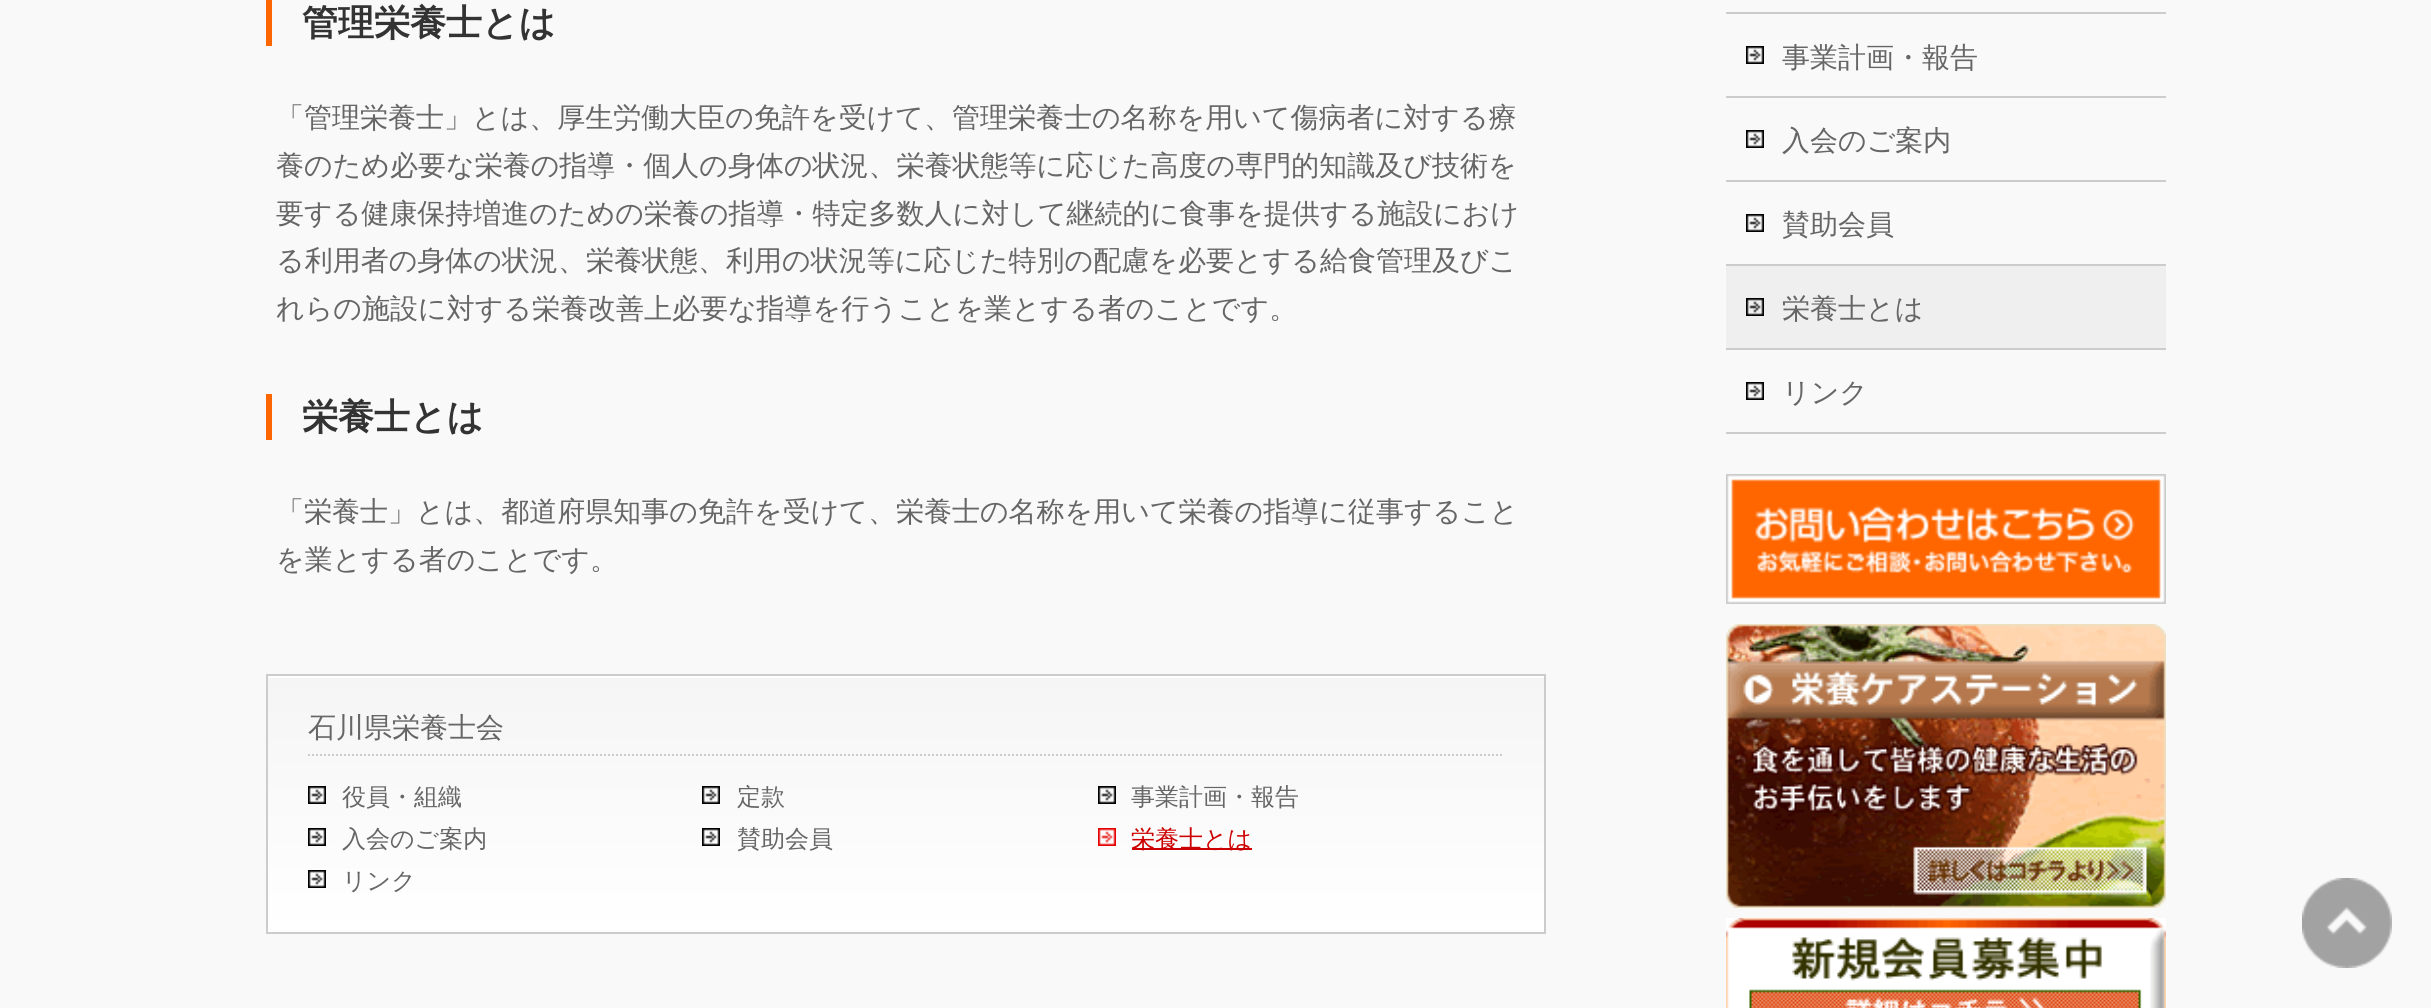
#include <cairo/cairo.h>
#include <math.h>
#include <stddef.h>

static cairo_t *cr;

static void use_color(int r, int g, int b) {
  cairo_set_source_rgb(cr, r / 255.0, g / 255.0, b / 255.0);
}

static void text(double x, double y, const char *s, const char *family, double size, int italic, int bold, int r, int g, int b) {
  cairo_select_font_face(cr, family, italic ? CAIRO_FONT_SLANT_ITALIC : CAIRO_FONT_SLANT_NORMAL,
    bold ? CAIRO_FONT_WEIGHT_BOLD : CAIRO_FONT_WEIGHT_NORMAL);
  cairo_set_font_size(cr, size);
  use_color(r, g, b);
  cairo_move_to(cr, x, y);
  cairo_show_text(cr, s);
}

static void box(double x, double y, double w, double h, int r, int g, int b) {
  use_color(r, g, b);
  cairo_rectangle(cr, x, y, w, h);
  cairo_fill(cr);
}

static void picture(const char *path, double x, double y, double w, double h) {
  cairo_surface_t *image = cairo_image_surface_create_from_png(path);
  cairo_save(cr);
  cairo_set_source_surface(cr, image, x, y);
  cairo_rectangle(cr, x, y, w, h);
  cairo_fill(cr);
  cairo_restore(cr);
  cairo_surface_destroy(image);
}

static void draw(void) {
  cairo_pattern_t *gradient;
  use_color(249, 249, 249);
  cairo_paint(cr);
  box(266, 0, 6, 46, 255, 102, 0);
  box(266, 394, 6, 46, 255, 102, 0);
  gradient = cairo_pattern_create_linear(268, 676, 268, 932);
  cairo_pattern_add_color_stop_rgba(gradient, 0, 0.961, 0.961, 0.961, 1);
  cairo_pattern_add_color_stop_rgba(gradient, 1, 1, 1, 1, 1);
  cairo_set_source(cr, gradient);
  cairo_pattern_destroy(gradient);
  cairo_rectangle(cr, 268, 678, 1276, 254);
  cairo_fill(cr);
  box(268, 676, 1276, 2, 255, 255, 255);
  cairo_rectangle(cr, 267, 675, 1278, 258);
  use_color(204, 204, 204);
  cairo_stroke(cr);
  cairo_new_path(cr);
  cairo_move_to(cr, 308, 755);
  cairo_line_to(cr, 1504, 755);
  cairo_set_dash(cr, (double[]){2, 2}, 2, 0);
  cairo_stroke(cr);
  picture("img_01.png", 308, 786, 18, 18);
  picture("img_01.png", 702, 786, 18, 18);
  picture("img_01.png", 1098, 786, 18, 18);
  picture("img_02.png", 308, 828, 18, 18);
  picture("img_02.png", 702, 828, 18, 18);
  picture("img_03.png", 1098, 828, 18, 18);
  box(1132, 848, 120, 2, 204, 0, 0);
  picture("img_04.png", 308, 870, 18, 18);
  box(1726, 12, 440, 2, 204, 204, 204);
  box(1726, 96, 440, 2, 204, 204, 204);
  picture("img_05.png", 1746, 46, 18, 18);
  box(1726, 180, 440, 2, 204, 204, 204);
  picture("img_05.png", 1746, 130, 18, 18);
  box(1726, 264, 440, 2, 204, 204, 204);
  picture("img_05.png", 1746, 214, 18, 18);
  box(1726, 348, 440, 2, 204, 204, 204);
  box(1726, 266, 440, 82, 239, 239, 239);
  picture("img_06.png", 1746, 298, 18, 18);
  box(1726, 432, 440, 2, 204, 204, 204);
  picture("img_05.png", 1746, 382, 18, 18);
  box(1731, 479, 430, 120, 255, 102, 0);
  picture("img_07.png", 1726, 474, 440, 130);
  picture("img_08.png", 1726, 624, 440, 284);
  picture("img_09.png", 1726, 918, 440, 90);
  picture("img_10.png", 2302, 878, 90, 90);
  text(302, 35, "管理栄養士とは", "WenQuanYi Zen Hei", 36, 0, 1, 51, 51, 51);
  text(276, 127, "「管理栄養士」とは、厚生労働大臣の免許を受けて、管理栄養士の名称を用いて傷病者に対する療", "WenQuanYi Zen Hei Medium", 28, 0, 0, 102, 102, 102);
  text(276, 175, "養のため必要な栄養の指導・個人の身体の状況、栄養状態等に応じた高度の専門的知識及び技術を", "WenQuanYi Zen Hei Medium", 28, 0, 0, 102, 102, 102);
  text(276, 223, "要する健康保持増進のための栄養の指導・特定多数人に対して継続的に食事を提供する施設におけ", "WenQuanYi Zen Hei Medium", 28, 0, 0, 102, 102, 102);
  text(276, 270, "る利用者の身体の状況、栄養状態、利用の状況等に応じた特別の配慮を必要とする給食管理及びこ", "WenQuanYi Zen Hei Medium", 28, 0, 0, 102, 102, 102);
  text(276, 318, "れらの施設に対する栄養改善上必要な指導を行うことを業とする者のことです。", "WenQuanYi Zen Hei Medium", 28, 0, 0, 102, 102, 102);
  text(302, 429, "栄養士とは", "WenQuanYi Zen Hei", 36, 0, 1, 51, 51, 51);
  text(276, 521, "「栄養士」とは、都道府県知事の免許を受けて、栄養士の名称を用いて栄養の指導に従事すること", "WenQuanYi Zen Hei Medium", 28, 0, 0, 102, 102, 102);
  text(276, 569, "を業とする者のことです。", "WenQuanYi Zen Hei Medium", 28, 0, 0, 102, 102, 102);
  text(308, 737, "石川県栄養士会", "WenQuanYi Zen Hei Medium", 28, 0, 0, 102, 102, 102);
  text(342, 805, "役員・組織", "WenQuanYi Zen Hei Medium", 24, 0, 0, 102, 102, 102);
  text(737, 805, "定款", "WenQuanYi Zen Hei Medium", 24, 0, 0, 102, 102, 102);
  text(1131, 805, "事業計画・報告", "WenQuanYi Zen Hei Medium", 24, 0, 0, 102, 102, 102);
  text(342, 847, "入会のご案内", "WenQuanYi Zen Hei Medium", 24, 0, 0, 102, 102, 102);
  text(737, 847, "賛助会員", "WenQuanYi Zen Hei Medium", 24, 0, 0, 102, 102, 102);
  text(1131, 847, "栄養士とは", "WenQuanYi Zen Hei Medium", 24, 0, 0, 204, 0, 0);
  text(342, 889, "リンク", "WenQuanYi Zen Hei Medium", 24, 0, 0, 102, 102, 102);
  text(1782, 67, "事業計画・報告", "WenQuanYi Zen Hei Medium", 28, 0, 0, 102, 102, 102);
  text(1782, 150, "入会のご案内", "WenQuanYi Zen Hei Medium", 28, 0, 0, 102, 102, 102);
  text(1782, 234, "賛助会員", "WenQuanYi Zen Hei Medium", 28, 0, 0, 102, 102, 102);
  text(1782, 318, "栄養士とは", "WenQuanYi Zen Hei Medium", 28, 0, 0, 102, 102, 102);
  text(1782, 402, "リンク", "WenQuanYi Zen Hei Medium", 28, 0, 0, 102, 102, 102);
}

int main(void) {
  cairo_surface_t *surface = cairo_image_surface_create(CAIRO_FORMAT_RGB24, 2431, 1008);
  cr = cairo_create(surface);
  cairo_font_options_t *options = cairo_font_options_create();
  cairo_font_options_set_hint_metrics(options, CAIRO_HINT_METRICS_OFF);
  cairo_font_options_set_hint_style(options, CAIRO_HINT_STYLE_NONE);
  cairo_set_font_options(cr, options);
  cairo_set_miter_limit(cr, 4);
  draw();
  cairo_surface_write_to_png(surface, "out.png");
  cairo_font_options_destroy(options);
  cairo_destroy(cr);
  cairo_surface_destroy(surface);
  return 0;
}
